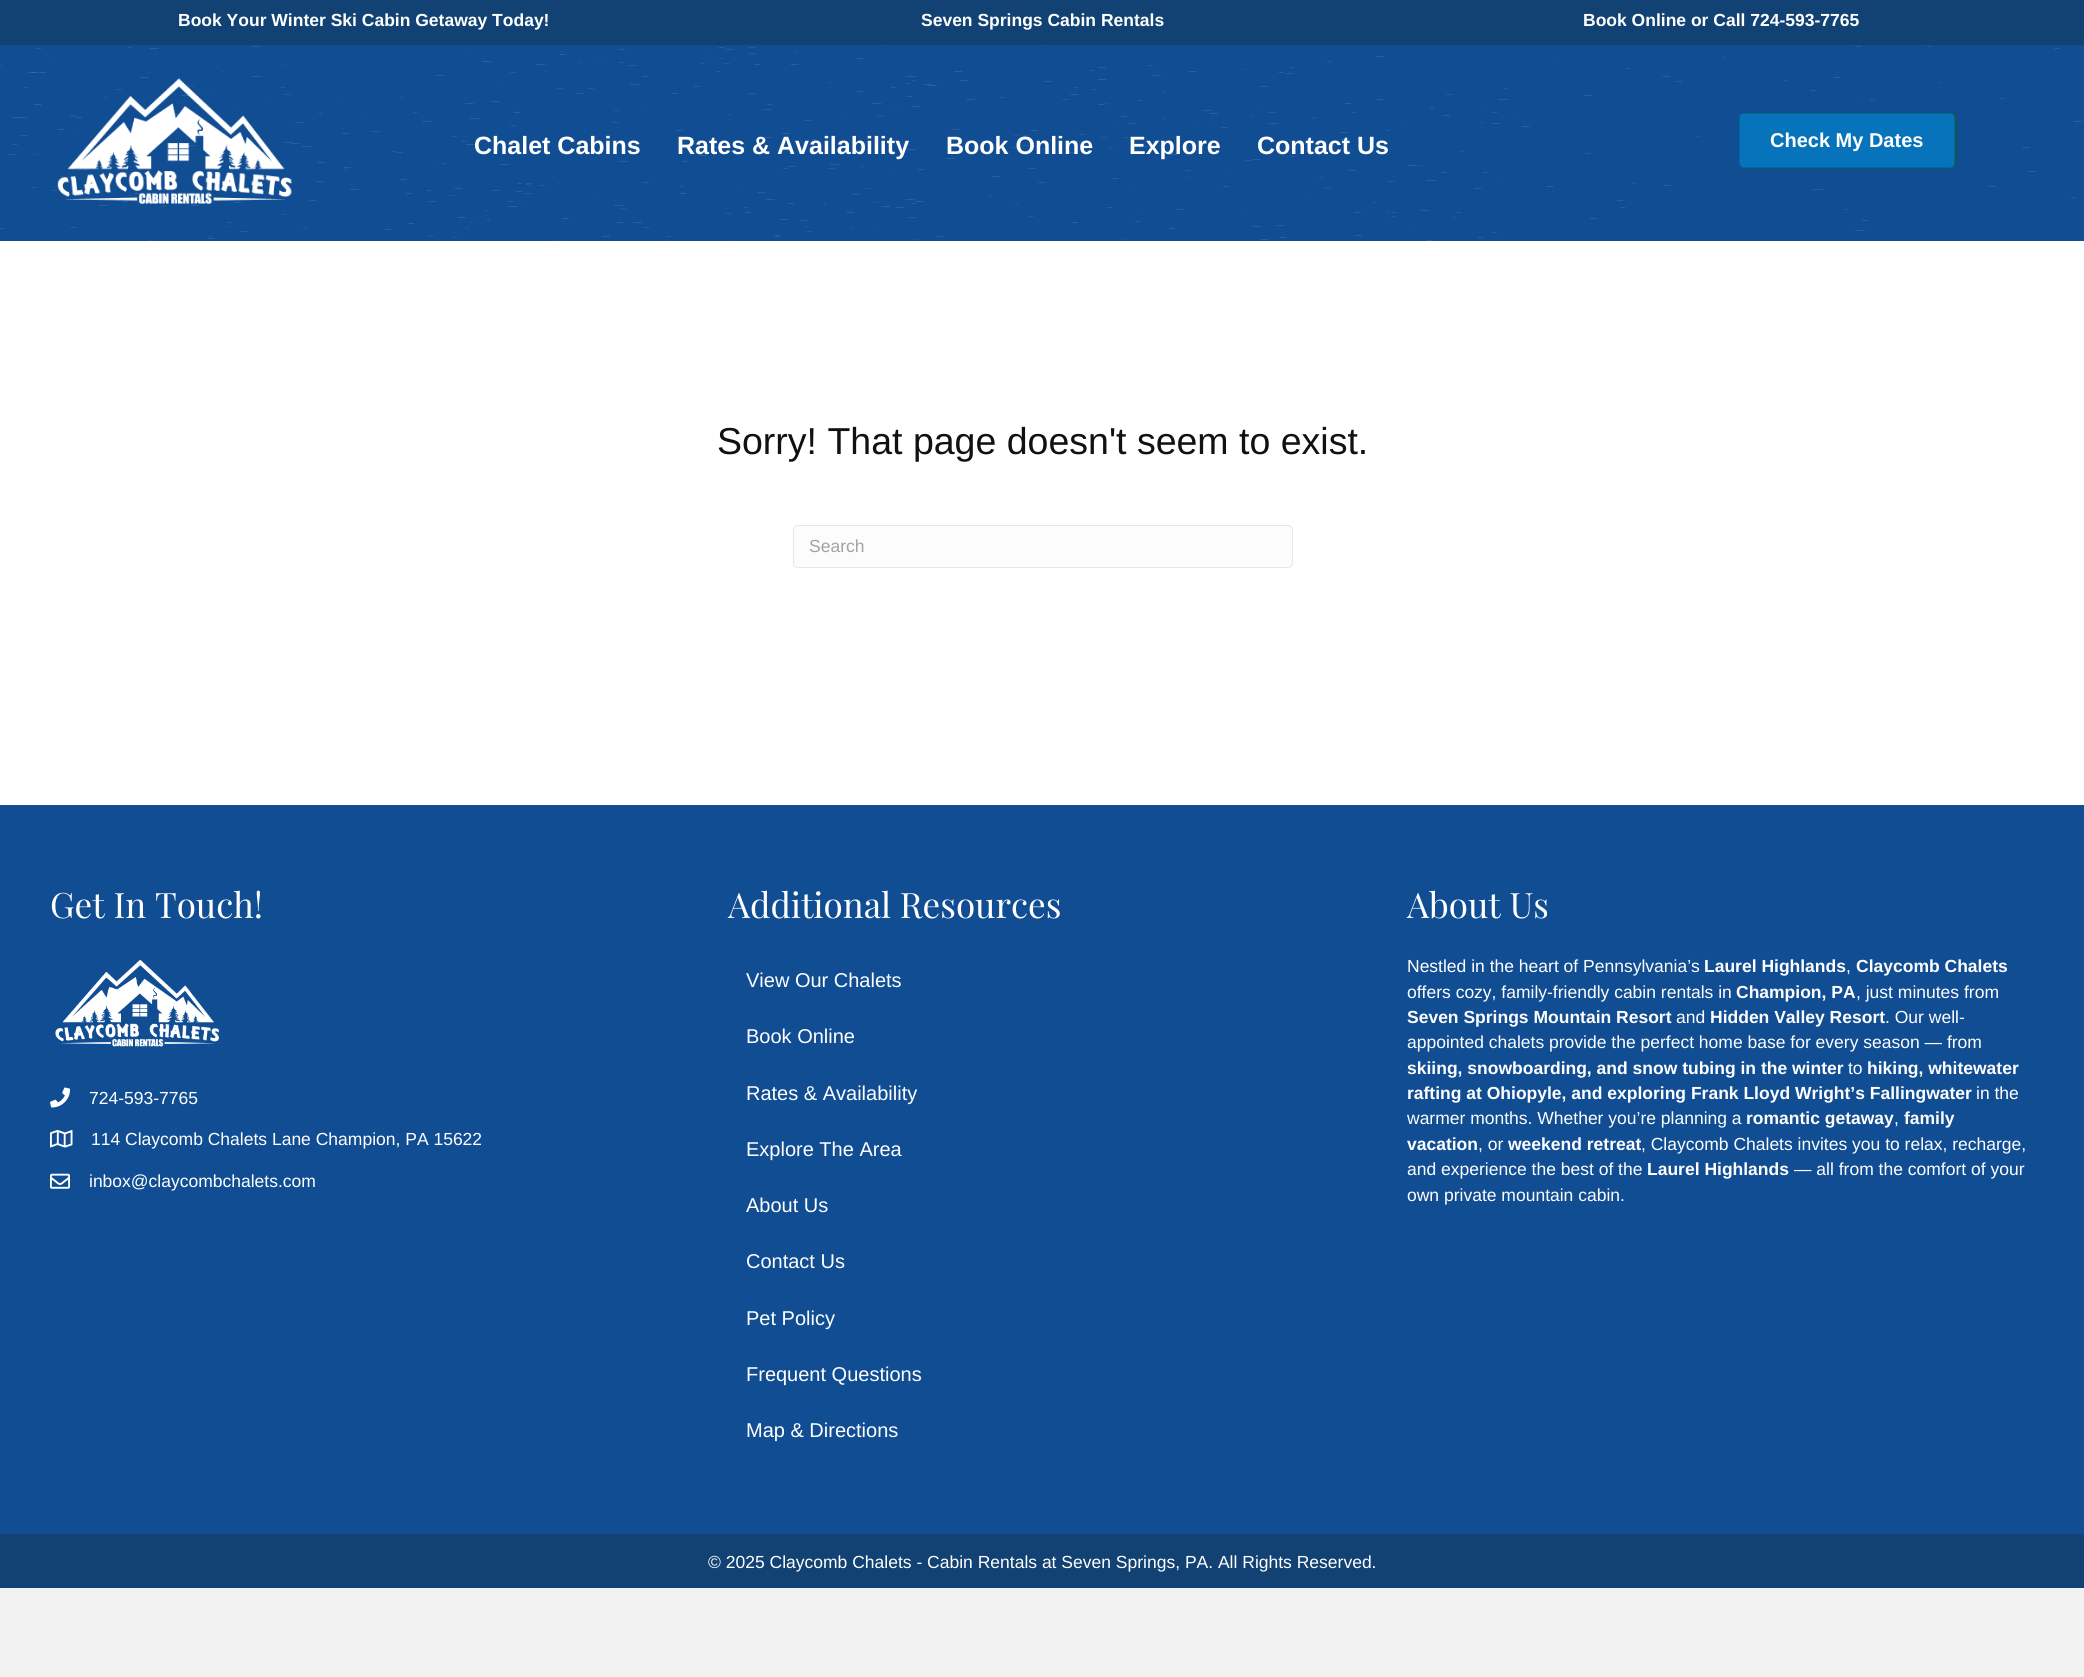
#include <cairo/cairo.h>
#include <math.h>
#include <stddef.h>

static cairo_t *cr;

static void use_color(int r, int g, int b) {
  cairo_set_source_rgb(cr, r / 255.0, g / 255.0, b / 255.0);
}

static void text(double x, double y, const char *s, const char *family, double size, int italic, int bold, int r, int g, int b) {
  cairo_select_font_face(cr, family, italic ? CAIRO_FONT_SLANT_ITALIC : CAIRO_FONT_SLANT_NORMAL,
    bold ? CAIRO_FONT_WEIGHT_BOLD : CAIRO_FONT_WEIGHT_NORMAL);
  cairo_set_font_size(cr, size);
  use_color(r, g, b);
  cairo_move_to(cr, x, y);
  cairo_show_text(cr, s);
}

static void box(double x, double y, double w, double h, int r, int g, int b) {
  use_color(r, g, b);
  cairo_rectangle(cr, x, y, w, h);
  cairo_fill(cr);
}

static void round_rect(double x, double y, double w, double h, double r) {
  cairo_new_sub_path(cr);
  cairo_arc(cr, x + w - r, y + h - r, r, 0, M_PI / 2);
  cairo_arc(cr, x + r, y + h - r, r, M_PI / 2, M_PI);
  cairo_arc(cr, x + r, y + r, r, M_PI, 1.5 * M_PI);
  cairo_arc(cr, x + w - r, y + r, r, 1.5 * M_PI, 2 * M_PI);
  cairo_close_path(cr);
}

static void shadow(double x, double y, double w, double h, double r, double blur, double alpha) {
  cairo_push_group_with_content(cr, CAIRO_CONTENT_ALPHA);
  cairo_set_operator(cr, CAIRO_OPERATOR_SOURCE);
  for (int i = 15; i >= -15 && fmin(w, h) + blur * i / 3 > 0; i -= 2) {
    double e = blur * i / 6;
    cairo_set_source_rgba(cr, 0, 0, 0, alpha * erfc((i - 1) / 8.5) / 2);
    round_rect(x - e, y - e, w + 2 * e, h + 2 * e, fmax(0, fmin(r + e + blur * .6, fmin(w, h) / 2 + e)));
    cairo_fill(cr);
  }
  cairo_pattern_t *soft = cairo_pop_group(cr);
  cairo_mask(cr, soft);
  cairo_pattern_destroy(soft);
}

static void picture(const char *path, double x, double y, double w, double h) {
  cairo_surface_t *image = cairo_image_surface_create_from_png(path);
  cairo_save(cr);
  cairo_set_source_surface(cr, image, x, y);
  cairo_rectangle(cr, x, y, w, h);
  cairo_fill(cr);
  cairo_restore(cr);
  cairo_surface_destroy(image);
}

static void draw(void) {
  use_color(242, 242, 242);
  cairo_paint(cr);
  box(0, 0, 2084, 45, 17, 66, 115);
  box(0, 45, 2084, 196, 17, 77, 147);
  picture("img_01.png", 0, 46, 2084, 195);
  picture("img_02.png", 57, 78, 235, 126);
  use_color(20, 96, 14);
  shadow(1740, 113, 216, 55, 5, 1, 1);
  use_color(6, 115, 186);
  round_rect(1739.5, 113.5, 215, 54, 4.5);
  cairo_fill_preserve(cr);
  use_color(0, 103, 174);
  cairo_set_line_width(cr, 1);
  cairo_stroke(cr);
  box(0, 241, 2084, 564, 255, 255, 255);
  use_color(252, 252, 252);
  round_rect(793.5, 525.5, 499, 42, 4.5);
  cairo_fill_preserve(cr);
  use_color(230, 230, 230);
  cairo_stroke(cr);
  box(0, 805, 2084, 729, 17, 77, 147);
  picture("img_03.png", 55, 960, 164, 87);
  picture("img_04.png", 50, 1087, 20, 21);
  picture("img_05.png", 50, 1130, 23, 18);
  picture("img_06.png", 50, 1173, 20, 16);
  box(0, 1534, 2084, 54, 17, 66, 115);
  text(178, 26, "Book Your Winter Ski Cabin Getaway Today!", "Liberation Sans", 17.5, 0, 1, 255, 255, 255);
  text(921, 26, "Seven Springs Cabin Rentals", "Liberation Sans", 17.5, 0, 1, 255, 255, 255);
  text(1583, 26, "Book Online or Call 724-593-7765", "Liberation Sans", 17.5, 0, 1, 255, 255, 255);
  text(474, 154, "Chalet Cabins", "Liberation Sans", 25, 0, 1, 255, 255, 255);
  text(677, 154, "Rates & Availability", "Liberation Sans", 25, 0, 1, 255, 255, 255);
  text(946, 154, "Book Online", "Liberation Sans", 25, 0, 1, 255, 255, 255);
  text(1129, 154, "Explore", "Liberation Sans", 25, 0, 1, 255, 255, 255);
  text(1257, 154, "Contact Us", "Liberation Sans", 25, 0, 1, 255, 255, 255);
  text(1770, 147, "Check My Dates", "Liberation Sans", 20, 0, 1, 255, 255, 255);
  text(717, 454, "Sorry! That page doesn't seem to exist.", "Liberation Sans", 37.5, 0, 0, 17, 17, 17);
  text(809, 552, "Search", "Liberation Sans", 17.5, 0, 0, 162, 162, 162);
  text(50, 918, "Get In Touch!", "Playfair Display", 35, 0, 0, 255, 255, 255);
  text(89, 1104, "724-593-7765", "Liberation Sans", 17.5, 0, 0, 255, 255, 255);
  text(91, 1145, "114 Claycomb Chalets Lane Champion, PA 15622", "Liberation Sans", 17.5, 0, 0, 255, 255, 255);
  text(89, 1187, "inbox@claycombchalets.com", "Liberation Sans", 17.5, 0, 0, 255, 255, 255);
  text(728, 918, "Additional Resources", "Playfair Display", 35, 0, 0, 255, 255, 255);
  text(746, 987, "View Our Chalets", "Liberation Sans", 20, 0, 0, 255, 255, 255);
  text(746, 1043, "Book Online", "Liberation Sans", 20, 0, 0, 255, 255, 255);
  text(746, 1100, "Rates & Availability", "Liberation Sans", 20, 0, 0, 255, 255, 255);
  text(746, 1156, "Explore The Area", "Liberation Sans", 20, 0, 0, 255, 255, 255);
  text(746, 1212, "About Us", "Liberation Sans", 20, 0, 0, 255, 255, 255);
  text(746, 1268, "Contact Us", "Liberation Sans", 20, 0, 0, 255, 255, 255);
  text(746, 1325, "Pet Policy", "Liberation Sans", 20, 0, 0, 255, 255, 255);
  text(746, 1381, "Frequent Questions", "Liberation Sans", 20, 0, 0, 255, 255, 255);
  text(746, 1437, "Map & Directions", "Liberation Sans", 20, 0, 0, 255, 255, 255);
  text(1407, 918, "About Us", "Playfair Display", 35, 0, 0, 255, 255, 255);
  text(1407, 972, "Nestled in the heart of Pennsylvania’s", "Liberation Sans", 17.5, 0, 0, 255, 255, 255);
  text(1704, 972, "Laurel Highlands", "Liberation Sans", 17.5, 0, 1, 255, 255, 255);
  text(1846, 972, ",", "Liberation Sans", 17.5, 0, 0, 255, 255, 255);
  text(1856, 972, "Claycomb Chalets", "Liberation Sans", 17.5, 0, 1, 255, 255, 255);
  text(1407, 998, "offers cozy, family-friendly cabin rentals in", "Liberation Sans", 17.5, 0, 0, 255, 255, 255);
  text(1736, 998, "Champion, PA", "Liberation Sans", 17.5, 0, 1, 255, 255, 255);
  text(1856, 998, ", just minutes from", "Liberation Sans", 17.5, 0, 0, 255, 255, 255);
  text(1407, 1023, "Seven Springs Mountain Resort", "Liberation Sans", 17.5, 0, 1, 255, 255, 255);
  text(1676, 1023, "and", "Liberation Sans", 17.5, 0, 0, 255, 255, 255);
  text(1710, 1023, "Hidden Valley Resort", "Liberation Sans", 17.5, 0, 1, 255, 255, 255);
  text(1885, 1023, ". Our well-", "Liberation Sans", 17.5, 0, 0, 255, 255, 255);
  text(1407, 1048, "appointed chalets provide the perfect home base for every season — from", "Liberation Sans", 17.5, 0, 0, 255, 255, 255);
  text(1407, 1074, "skiing, snowboarding, and snow tubing in the winter", "Liberation Sans", 17.5, 0, 1, 255, 255, 255);
  text(1848, 1074, "to", "Liberation Sans", 17.5, 0, 0, 255, 255, 255);
  text(1867, 1074, "hiking, whitewater", "Liberation Sans", 17.5, 0, 1, 255, 255, 255);
  text(1407, 1099, "rafting at Ohiopyle, and exploring Frank Lloyd Wright’s Fallingwater", "Liberation Sans", 17.5, 0, 1, 255, 255, 255);
  text(1976, 1099, "in the", "Liberation Sans", 17.5, 0, 0, 255, 255, 255);
  text(1407, 1124, "warmer months. Whether you’re planning a", "Liberation Sans", 17.5, 0, 0, 255, 255, 255);
  text(1746, 1124, "romantic getaway", "Liberation Sans", 17.5, 0, 1, 255, 255, 255);
  text(1894, 1124, ",", "Liberation Sans", 17.5, 0, 0, 255, 255, 255);
  text(1904, 1124, "family", "Liberation Sans", 17.5, 0, 1, 255, 255, 255);
  text(1407, 1150, "vacation", "Liberation Sans", 17.5, 0, 1, 255, 255, 255);
  text(1478, 1150, ", or", "Liberation Sans", 17.5, 0, 0, 255, 255, 255);
  text(1508, 1150, "weekend retreat", "Liberation Sans", 17.5, 0, 1, 255, 255, 255);
  text(1641, 1150, ", Claycomb Chalets invites you to relax, recharge,", "Liberation Sans", 17.5, 0, 0, 255, 255, 255);
  text(1407, 1175, "and experience the best of the", "Liberation Sans", 17.5, 0, 0, 255, 255, 255);
  text(1647, 1175, "Laurel Highlands", "Liberation Sans", 17.5, 0, 1, 255, 255, 255);
  text(1794, 1175, "— all from the comfort of your", "Liberation Sans", 17.5, 0, 0, 255, 255, 255);
  text(1407, 1201, "own private mountain cabin.", "Liberation Sans", 17.5, 0, 0, 255, 255, 255);
  text(708, 1568, "© 2025 Claycomb Chalets - Cabin Rentals at Seven Springs, PA. All Rights Reserved.", "Liberation Sans", 17.5, 0, 0, 255, 255, 255);
}

int main(void) {
  cairo_surface_t *surface = cairo_image_surface_create(CAIRO_FORMAT_RGB24, 2084, 1677);
  cr = cairo_create(surface);
  cairo_font_options_t *options = cairo_font_options_create();
  cairo_font_options_set_hint_metrics(options, CAIRO_HINT_METRICS_OFF);
  cairo_font_options_set_hint_style(options, CAIRO_HINT_STYLE_NONE);
  cairo_set_font_options(cr, options);
  cairo_set_miter_limit(cr, 4);
  draw();
  cairo_surface_write_to_png(surface, "out.png");
  cairo_font_options_destroy(options);
  cairo_destroy(cr);
  cairo_surface_destroy(surface);
  return 0;
}
